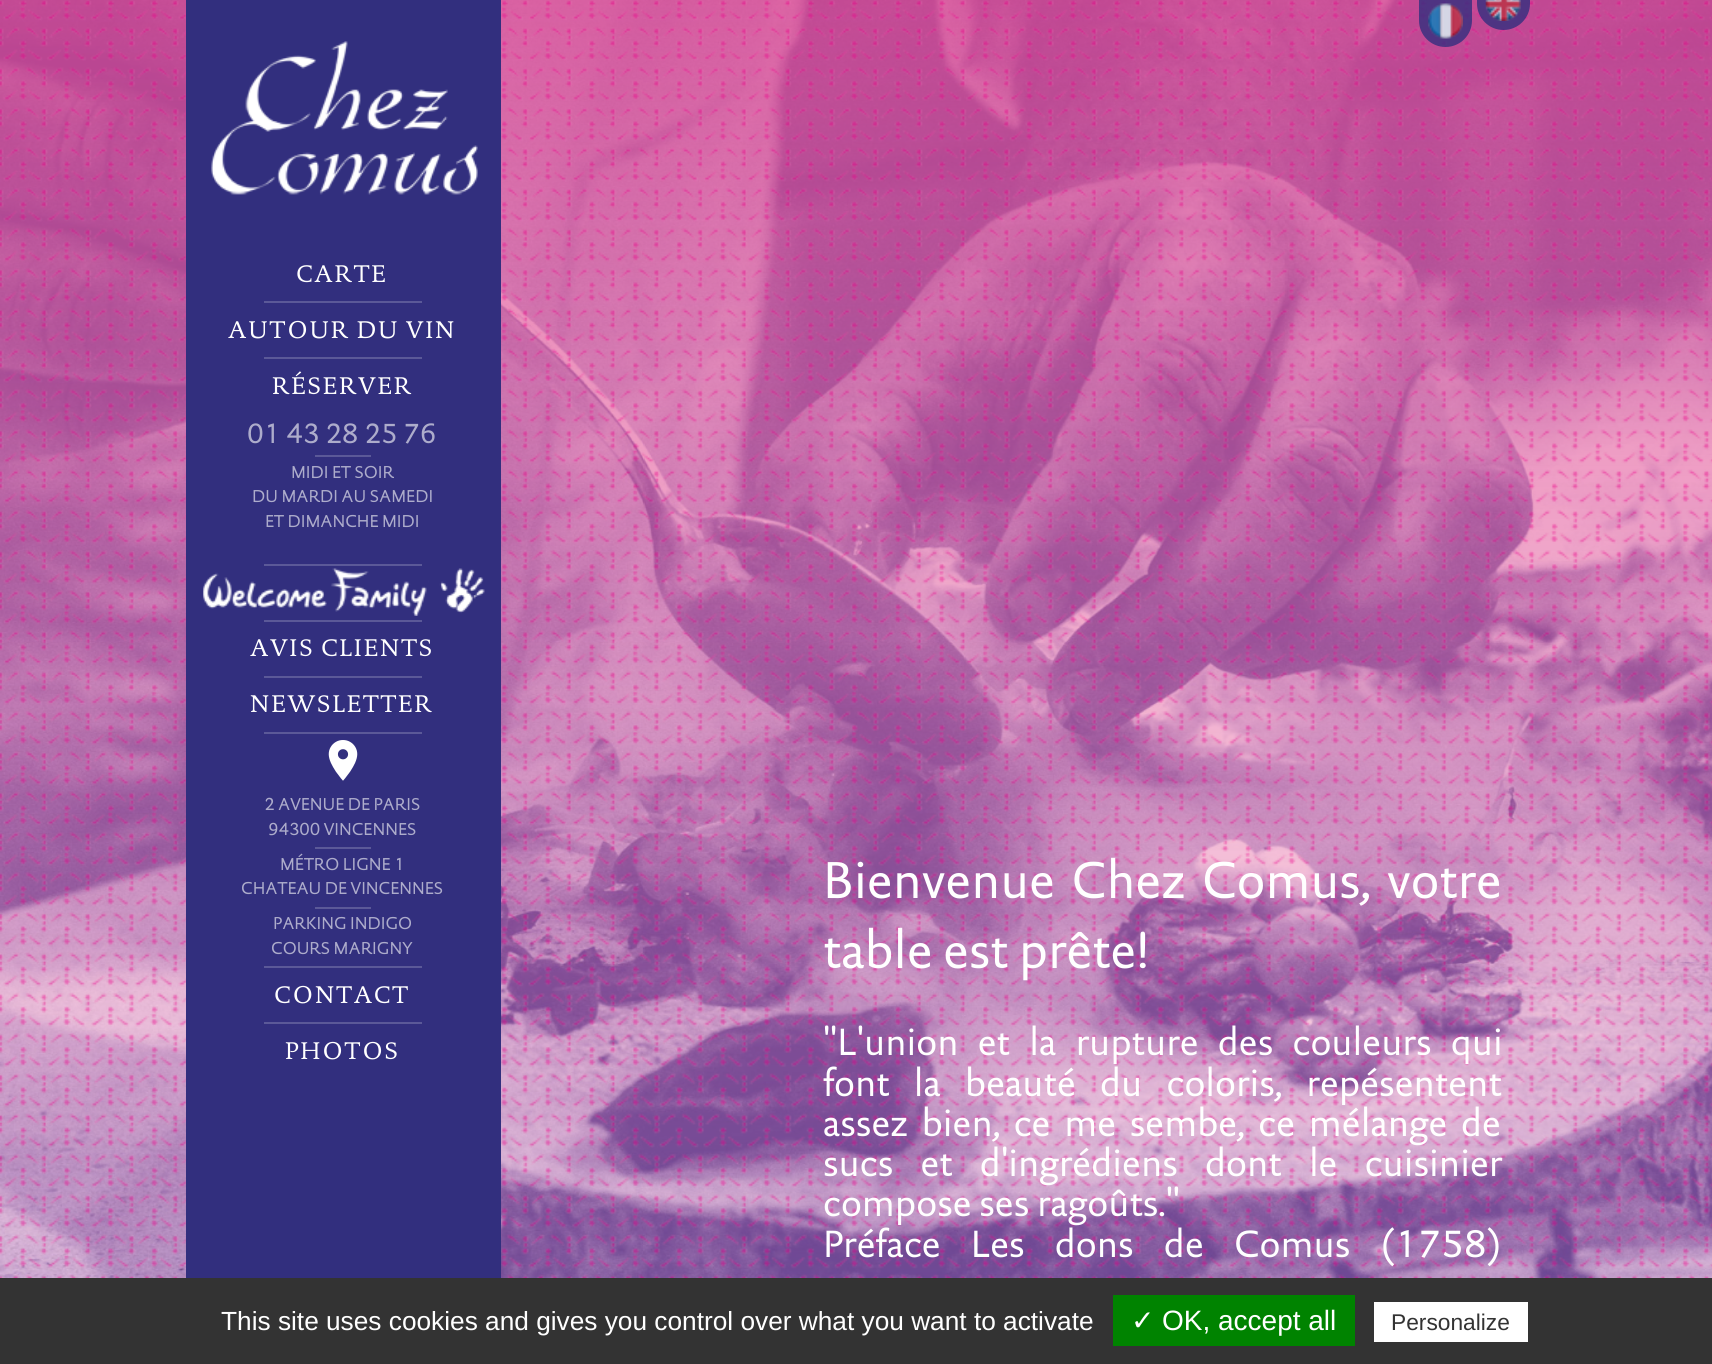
#include <cairo/cairo.h>
#include <math.h>
#include <stddef.h>

static cairo_t *cr;

static void use_color(int r, int g, int b) {
  cairo_set_source_rgb(cr, r / 255.0, g / 255.0, b / 255.0);
}

static void text(double x, double y, const char *s, const char *family, double size, int italic, int bold, int r, int g, int b) {
  cairo_select_font_face(cr, family, italic ? CAIRO_FONT_SLANT_ITALIC : CAIRO_FONT_SLANT_NORMAL,
    bold ? CAIRO_FONT_WEIGHT_BOLD : CAIRO_FONT_WEIGHT_NORMAL);
  cairo_set_font_size(cr, size);
  use_color(r, g, b);
  cairo_move_to(cr, x, y);
  cairo_show_text(cr, s);
}

static void spaced_text(double x, double y, const char *s, double letter, double word) {
  cairo_move_to(cr, x, y);
  while (*s) {
    char ch[5] = {0};
    int n = 0;
    do ch[n++] = *s++; while ((*s & 0xC0) == 0x80);
    cairo_show_text(cr, ch);
    cairo_rel_move_to(cr, letter + word * (*ch == ' '), 0);
  }
}

static void box(double x, double y, double w, double h, int r, int g, int b) {
  use_color(r, g, b);
  cairo_rectangle(cr, x, y, w, h);
  cairo_fill(cr);
}

static void round_rect(double x, double y, double w, double h, double r) {
  cairo_new_sub_path(cr);
  cairo_arc(cr, x + w - r, y + h - r, r, 0, M_PI / 2);
  cairo_arc(cr, x + r, y + h - r, r, M_PI / 2, M_PI);
  cairo_arc(cr, x + r, y + r, r, M_PI, 1.5 * M_PI);
  cairo_arc(cr, x + w - r, y + r, r, 1.5 * M_PI, 2 * M_PI);
  cairo_close_path(cr);
}

static void picture(const char *path, double x, double y, double w, double h) {
  cairo_surface_t *image = cairo_image_surface_create_from_png(path);
  cairo_save(cr);
  cairo_set_source_surface(cr, image, x, y);
  cairo_rectangle(cr, x, y, w, h);
  cairo_fill(cr);
  cairo_restore(cr);
  cairo_surface_destroy(image);
}

static void draw(void) {
  use_color(255, 255, 255);
  cairo_paint(cr);
  picture("img_01.png", 0, 0, 1712, 1278);
  picture("img_02.png", 0, 0, 1712, 1278);
  cairo_set_source_rgba(cr, 0.196, 0.184, 0.494, 0.8);
  round_rect(1419, -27, 53, 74, 26.5);
  cairo_fill(cr);
  picture("img_03.png", 1428, 3, 35, 36);
  round_rect(1477, -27, 53, 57, 26.5);
  cairo_fill(cr);
  picture("img_04.png", 1485, 0, 36, 21);
  box(186, 0, 315, 1278, 50, 47, 126);
  picture("img_05.png", 211, 41, 267, 154);
  box(264, 301, 158, 2, 91, 89, 152);
  box(264, 357, 158, 2, 91, 89, 152);
  box(315, 455, 56, 2, 91, 89, 152);
  box(264, 564, 158, 2, 91, 89, 152);
  picture("img_06.png", 203, 568, 282, 48);
  box(264, 620, 158, 2, 91, 89, 152);
  box(264, 676, 158, 2, 91, 89, 152);
  box(264, 732, 158, 2, 91, 89, 152);
  picture("img_07.png", 328, 740, 30, 41);
  box(315, 847, 56, 2, 91, 89, 152);
  box(315, 907, 56, 2, 91, 89, 152);
  box(264, 966, 158, 2, 91, 89, 152);
  box(264, 1022, 158, 2, 91, 89, 152);
  box(0, 1278, 1712, 86, 51, 51, 51);
  box(1113, 1295, 242, 51, 0, 131, 0);
  box(1374, 1302, 154, 40, 255, 255, 255);
  cairo_select_font_face(cr, "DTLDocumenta", CAIRO_FONT_SLANT_NORMAL, CAIRO_FONT_WEIGHT_NORMAL);
  cairo_set_font_size(cr, 24.5);
  spaced_text(296, 282, "CARTE", 1.75, 0);
  spaced_text(228, 338, "AUTOUR DU VIN", 1.75, 0);
  spaced_text(272, 394, "RÉSERVER", 1.75, 0);
  text(247, 443, "01 43 28 25 76", "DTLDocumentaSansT", 28, 0, 0, 173, 172, 203);
  text(291, 478, "MIDI ET SOIR", "DTLDocumentaSansT", 17.5, 0, 0, 173, 172, 203);
  text(252, 502, "DU MARDI AU SAMEDI", "DTLDocumentaSansT", 17.5, 0, 0, 173, 172, 203);
  text(265, 527, "ET DIMANCHE MIDI", "DTLDocumentaSansT", 17.5, 0, 0, 173, 172, 203);
  cairo_select_font_face(cr, "DTLDocumenta", CAIRO_FONT_SLANT_NORMAL, CAIRO_FONT_WEIGHT_NORMAL);
  cairo_set_font_size(cr, 24.5);
  use_color(255, 255, 255);
  spaced_text(250, 656, "AVIS CLIENTS", 1.75, 0);
  spaced_text(250, 712, "NEWSLETTER", 1.75, 0);
  text(264, 810, "2 AVENUE DE PARIS", "DTLDocumentaSansT", 17.5, 0, 0, 173, 172, 203);
  text(268, 835, "94300 VINCENNES", "DTLDocumentaSansT", 17.5, 0, 0, 173, 172, 203);
  text(280, 870, "MÉTRO LIGNE 1", "DTLDocumentaSansT", 17.5, 0, 0, 173, 172, 203);
  text(241, 894, "CHATEAU DE VINCENNES", "DTLDocumentaSansT", 17.5, 0, 0, 173, 172, 203);
  text(273, 929, "PARKING INDIGO", "DTLDocumentaSansT", 17.5, 0, 0, 173, 172, 203);
  text(271, 954, "COURS MARIGNY", "DTLDocumentaSansT", 17.5, 0, 0, 173, 172, 203);
  cairo_select_font_face(cr, "DTLDocumenta", CAIRO_FONT_SLANT_NORMAL, CAIRO_FONT_WEIGHT_NORMAL);
  cairo_set_font_size(cr, 24.5);
  use_color(255, 255, 255);
  spaced_text(274, 1003, "CONTACT", 1.75, 0);
  spaced_text(285, 1059, "PHOTOS", 1.75, 0);
  cairo_select_font_face(cr, "DTLDocumentaSansT", CAIRO_FONT_SLANT_NORMAL, CAIRO_FONT_WEIGHT_NORMAL);
  cairo_set_font_size(cr, 52.5);
  spaced_text(823, 898, "Bienvenue Chez Comus, votre", 0, 6);
  text(823, 968, "table est prête!", "DTLDocumentaSansT", 52.5, 0, 0, 255, 255, 255);
  cairo_set_font_size(cr, 38.5);
  spaced_text(823, 1055, "\"L'union et la rupture des couleurs qui", 0, 11.5);
  spaced_text(823, 1096, "font la beauté du coloris, repésentent", 0, 16.5);
  spaced_text(823, 1136, "assez bien, ce me sembe, ce mélange de", 0, 6);
  spaced_text(823, 1176, "sucs et d'ingrédiens dont le cuisinier", 0, 19.5);
  text(823, 1216, "compose ses ragoûts.\"", "DTLDocumentaSansT", 38.5, 0, 0, 255, 255, 255);
  spaced_text(823, 1257, "Préface Les dons de Comus (1758)", 0, 22.5);
  text(221, 1330, "This site uses cookies and gives you control over what you want to activate", "Liberation Sans", 26.25, 0, 0, 255, 255, 255);
  text(1131, 1330, "✓", "DejaVu Sans", 28, 0, 0, 255, 255, 255);
  text(1162, 1330, "OK, accept all", "Liberation Sans", 28, 0, 0, 255, 255, 255);
  text(1391, 1330, "Personalize", "Liberation Sans", 22.75, 0, 0, 51, 51, 51);
}

int main(void) {
  cairo_surface_t *surface = cairo_image_surface_create(CAIRO_FORMAT_RGB24, 1712, 1364);
  cr = cairo_create(surface);
  cairo_font_options_t *options = cairo_font_options_create();
  cairo_font_options_set_hint_metrics(options, CAIRO_HINT_METRICS_OFF);
  cairo_font_options_set_hint_style(options, CAIRO_HINT_STYLE_NONE);
  cairo_set_font_options(cr, options);
  cairo_set_miter_limit(cr, 4);
  draw();
  cairo_surface_write_to_png(surface, "out.png");
  cairo_font_options_destroy(options);
  cairo_destroy(cr);
  cairo_surface_destroy(surface);
  return 0;
}
